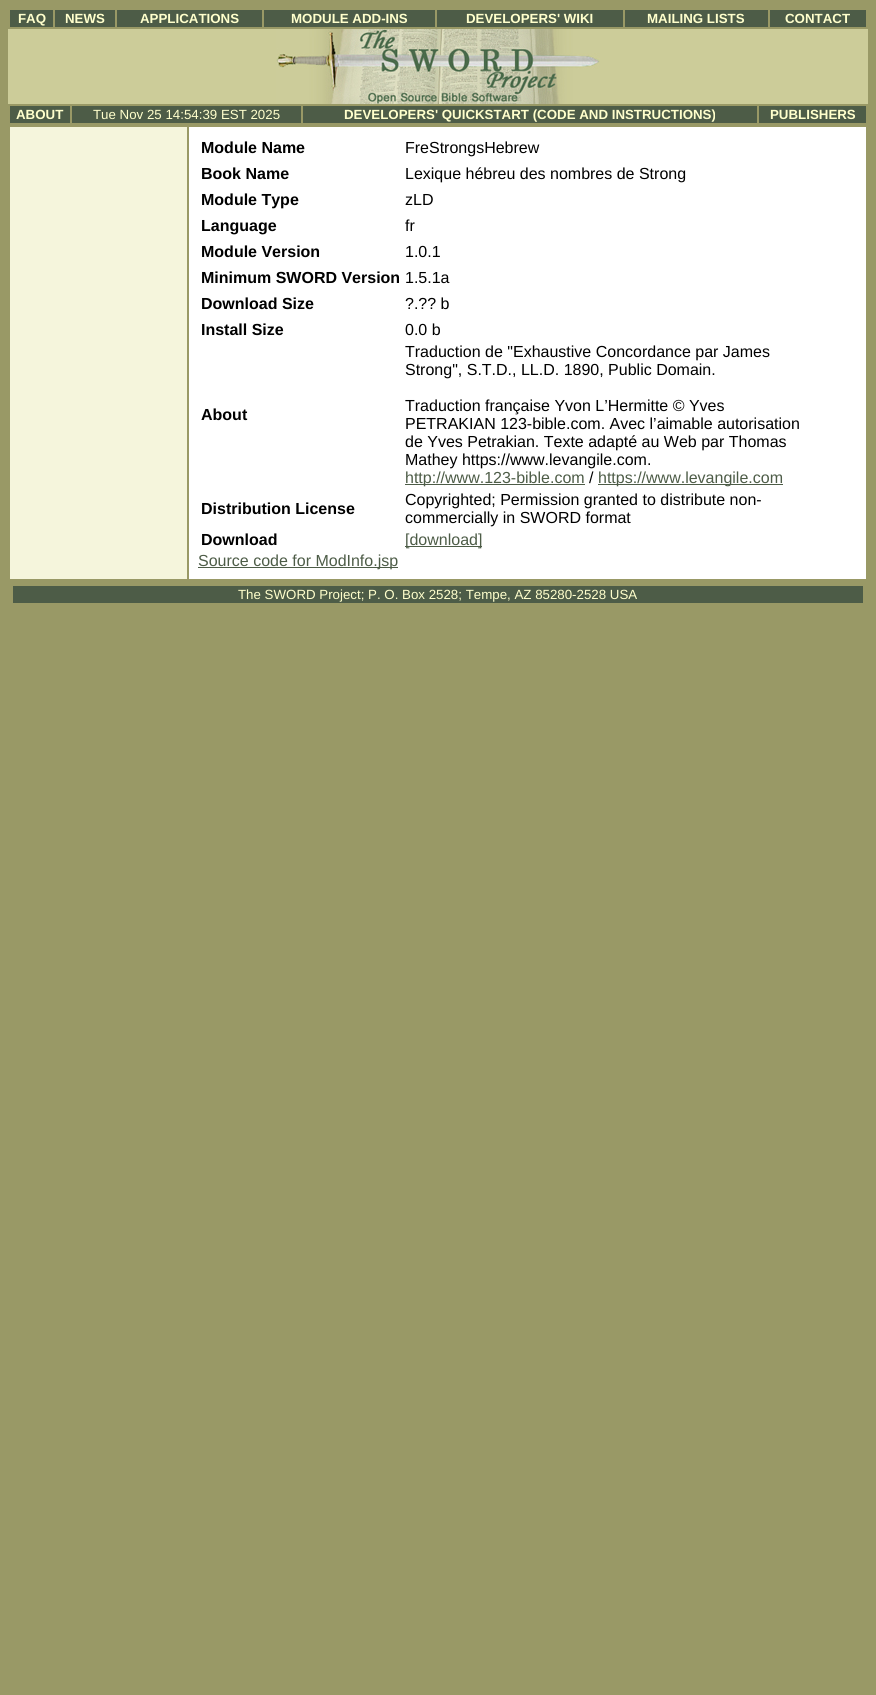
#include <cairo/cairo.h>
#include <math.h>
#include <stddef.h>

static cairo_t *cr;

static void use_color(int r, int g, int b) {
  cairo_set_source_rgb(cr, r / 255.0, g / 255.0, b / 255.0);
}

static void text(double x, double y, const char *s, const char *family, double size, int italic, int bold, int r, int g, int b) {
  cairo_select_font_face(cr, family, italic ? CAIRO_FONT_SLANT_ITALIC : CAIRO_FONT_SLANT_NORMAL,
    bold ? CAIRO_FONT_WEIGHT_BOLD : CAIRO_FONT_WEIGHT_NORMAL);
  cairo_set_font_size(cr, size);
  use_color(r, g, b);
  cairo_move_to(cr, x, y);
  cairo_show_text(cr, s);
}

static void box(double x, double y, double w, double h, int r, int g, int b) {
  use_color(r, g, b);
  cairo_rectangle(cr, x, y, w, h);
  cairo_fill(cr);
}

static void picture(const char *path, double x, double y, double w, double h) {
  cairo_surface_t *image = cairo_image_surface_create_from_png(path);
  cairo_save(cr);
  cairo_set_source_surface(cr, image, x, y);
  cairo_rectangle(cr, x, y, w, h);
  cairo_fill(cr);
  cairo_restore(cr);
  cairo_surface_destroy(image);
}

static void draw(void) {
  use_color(153, 153, 102);
  cairo_paint(cr);
  box(10, 10, 43, 17, 77, 92, 71);
  box(55, 10, 60, 17, 77, 92, 71);
  box(117, 10, 145, 17, 77, 92, 71);
  box(264, 10, 171, 17, 77, 92, 71);
  box(437, 10, 186, 17, 77, 92, 71);
  box(625, 10, 143, 17, 77, 92, 71);
  box(770, 10, 96, 17, 77, 92, 71);
  box(8, 29, 860, 75, 204, 204, 153);
  picture("img_01.png", 276, 29, 324, 75);
  box(10, 106, 60, 17, 77, 92, 71);
  box(72, 106, 229, 17, 77, 92, 71);
  box(303, 106, 454, 17, 77, 92, 71);
  box(759, 106, 107, 17, 77, 92, 71);
  box(10, 127, 177, 452, 245, 245, 220);
  box(189, 127, 677, 452, 255, 255, 255);
  box(405, 484, 180, 1, 77, 92, 71);
  box(598, 484, 185, 1, 77, 92, 71);
  box(405, 546, 77, 1, 77, 92, 71);
  box(198, 567, 200, 1, 77, 92, 71);
  box(13, 586, 850, 17, 77, 92, 71);
  text(18, 23, "FAQ", "Liberation Sans", 13.3, 0, 1, 255, 255, 204);
  text(65, 23, "NEWS", "Liberation Sans", 13.3, 0, 1, 255, 255, 204);
  text(140, 23, "APPLICATIONS", "Liberation Sans", 13.3, 0, 1, 255, 255, 204);
  text(291, 23, "MODULE ADD-INS", "Liberation Sans", 13.3, 0, 1, 255, 255, 204);
  text(466, 23, "DEVELOPERS' WIKI", "Liberation Sans", 13.3, 0, 1, 255, 255, 204);
  text(647, 23, "MAILING LISTS", "Liberation Sans", 13.3, 0, 1, 255, 255, 204);
  text(785, 23, "CONTACT", "Liberation Sans", 13.3, 0, 1, 255, 255, 204);
  text(16, 119, "ABOUT", "Liberation Sans", 13.3, 0, 1, 255, 255, 204);
  text(93, 119, "Tue Nov 25 14:54:39 EST 2025", "Liberation Sans", 13.3, 0, 0, 255, 255, 204);
  text(344, 119, "DEVELOPERS' QUICKSTART (CODE AND INSTRUCTIONS)", "Liberation Sans", 13.3, 0, 1, 255, 255, 204);
  text(770, 119, "PUBLISHERS", "Liberation Sans", 13.3, 0, 1, 255, 255, 204);
  text(201, 153, "Module Name", "Liberation Sans", 16, 0, 1, 0, 0, 0);
  text(405, 153, "FreStrongsHebrew", "Liberation Sans", 16, 0, 0, 0, 0, 0);
  text(201, 179, "Book Name", "Liberation Sans", 16, 0, 1, 0, 0, 0);
  text(405, 179, "Lexique hébreu des nombres de Strong", "Liberation Sans", 16, 0, 0, 0, 0, 0);
  text(201, 205, "Module Type", "Liberation Sans", 16, 0, 1, 0, 0, 0);
  text(405, 205, "zLD", "Liberation Sans", 16, 0, 0, 0, 0, 0);
  text(201, 231, "Language", "Liberation Sans", 16, 0, 1, 0, 0, 0);
  text(405, 231, "fr", "Liberation Sans", 16, 0, 0, 0, 0, 0);
  text(201, 257, "Module Version", "Liberation Sans", 16, 0, 1, 0, 0, 0);
  text(405, 257, "1.0.1", "Liberation Sans", 16, 0, 0, 0, 0, 0);
  text(201, 283, "Minimum SWORD Version", "Liberation Sans", 16, 0, 1, 0, 0, 0);
  text(405, 283, "1.5.1a", "Liberation Sans", 16, 0, 0, 0, 0, 0);
  text(201, 309, "Download Size", "Liberation Sans", 16, 0, 1, 0, 0, 0);
  text(405, 309, "?.?\077 b", "Liberation Sans", 16, 0, 0, 0, 0, 0);
  text(201, 335, "Install Size", "Liberation Sans", 16, 0, 1, 0, 0, 0);
  text(405, 335, "0.0 b", "Liberation Sans", 16, 0, 0, 0, 0, 0);
  text(201, 420, "About", "Liberation Sans", 16, 0, 1, 0, 0, 0);
  text(405, 357, "Traduction de \"Exhaustive Concordance par James", "Liberation Sans", 16, 0, 0, 0, 0, 0);
  text(405, 375, "Strong\", S.T.D., LL.D. 1890, Public Domain.", "Liberation Sans", 16, 0, 0, 0, 0, 0);
  text(405, 411, "Traduction française Yvon L’Hermitte © Yves", "Liberation Sans", 16, 0, 0, 0, 0, 0);
  text(405, 429, "PETRAKIAN 123-bible.com. Avec l’aimable autorisation", "Liberation Sans", 16, 0, 0, 0, 0, 0);
  text(405, 447, "de Yves Petrakian. Texte adapté au Web par Thomas", "Liberation Sans", 16, 0, 0, 0, 0, 0);
  text(405, 465, "Mathey https://www.levangile.com.", "Liberation Sans", 16, 0, 0, 0, 0, 0);
  text(405, 483, "http://www.123-bible.com", "Liberation Sans", 16, 0, 0, 77, 92, 71);
  text(589, 483, "/", "Liberation Sans", 16, 0, 0, 0, 0, 0);
  text(598, 483, "https://www.levangile.com", "Liberation Sans", 16, 0, 0, 77, 92, 71);
  text(201, 514, "Distribution License", "Liberation Sans", 16, 0, 1, 0, 0, 0);
  text(405, 505, "Copyrighted; Permission granted to distribute non-", "Liberation Sans", 16, 0, 0, 0, 0, 0);
  text(405, 523, "commercially in SWORD format", "Liberation Sans", 16, 0, 0, 0, 0, 0);
  text(201, 545, "Download", "Liberation Sans", 16, 0, 1, 0, 0, 0);
  text(405, 545, "[download]", "Liberation Sans", 16, 0, 0, 77, 92, 71);
  text(198, 566, "Source code for ModInfo.jsp", "Liberation Sans", 16, 0, 0, 77, 92, 71);
  text(238, 599, "The SWORD Project; P. O. Box 2528; Tempe, AZ 85280-2528 USA", "Liberation Sans", 13.3, 0, 0, 255, 255, 204);
}

int main(void) {
  cairo_surface_t *surface = cairo_image_surface_create(CAIRO_FORMAT_RGB24, 876, 1695);
  cr = cairo_create(surface);
  cairo_font_options_t *options = cairo_font_options_create();
  cairo_font_options_set_hint_metrics(options, CAIRO_HINT_METRICS_OFF);
  cairo_font_options_set_hint_style(options, CAIRO_HINT_STYLE_NONE);
  cairo_set_font_options(cr, options);
  cairo_set_miter_limit(cr, 4);
  draw();
  cairo_surface_write_to_png(surface, "out.png");
  cairo_font_options_destroy(options);
  cairo_destroy(cr);
  cairo_surface_destroy(surface);
  return 0;
}
